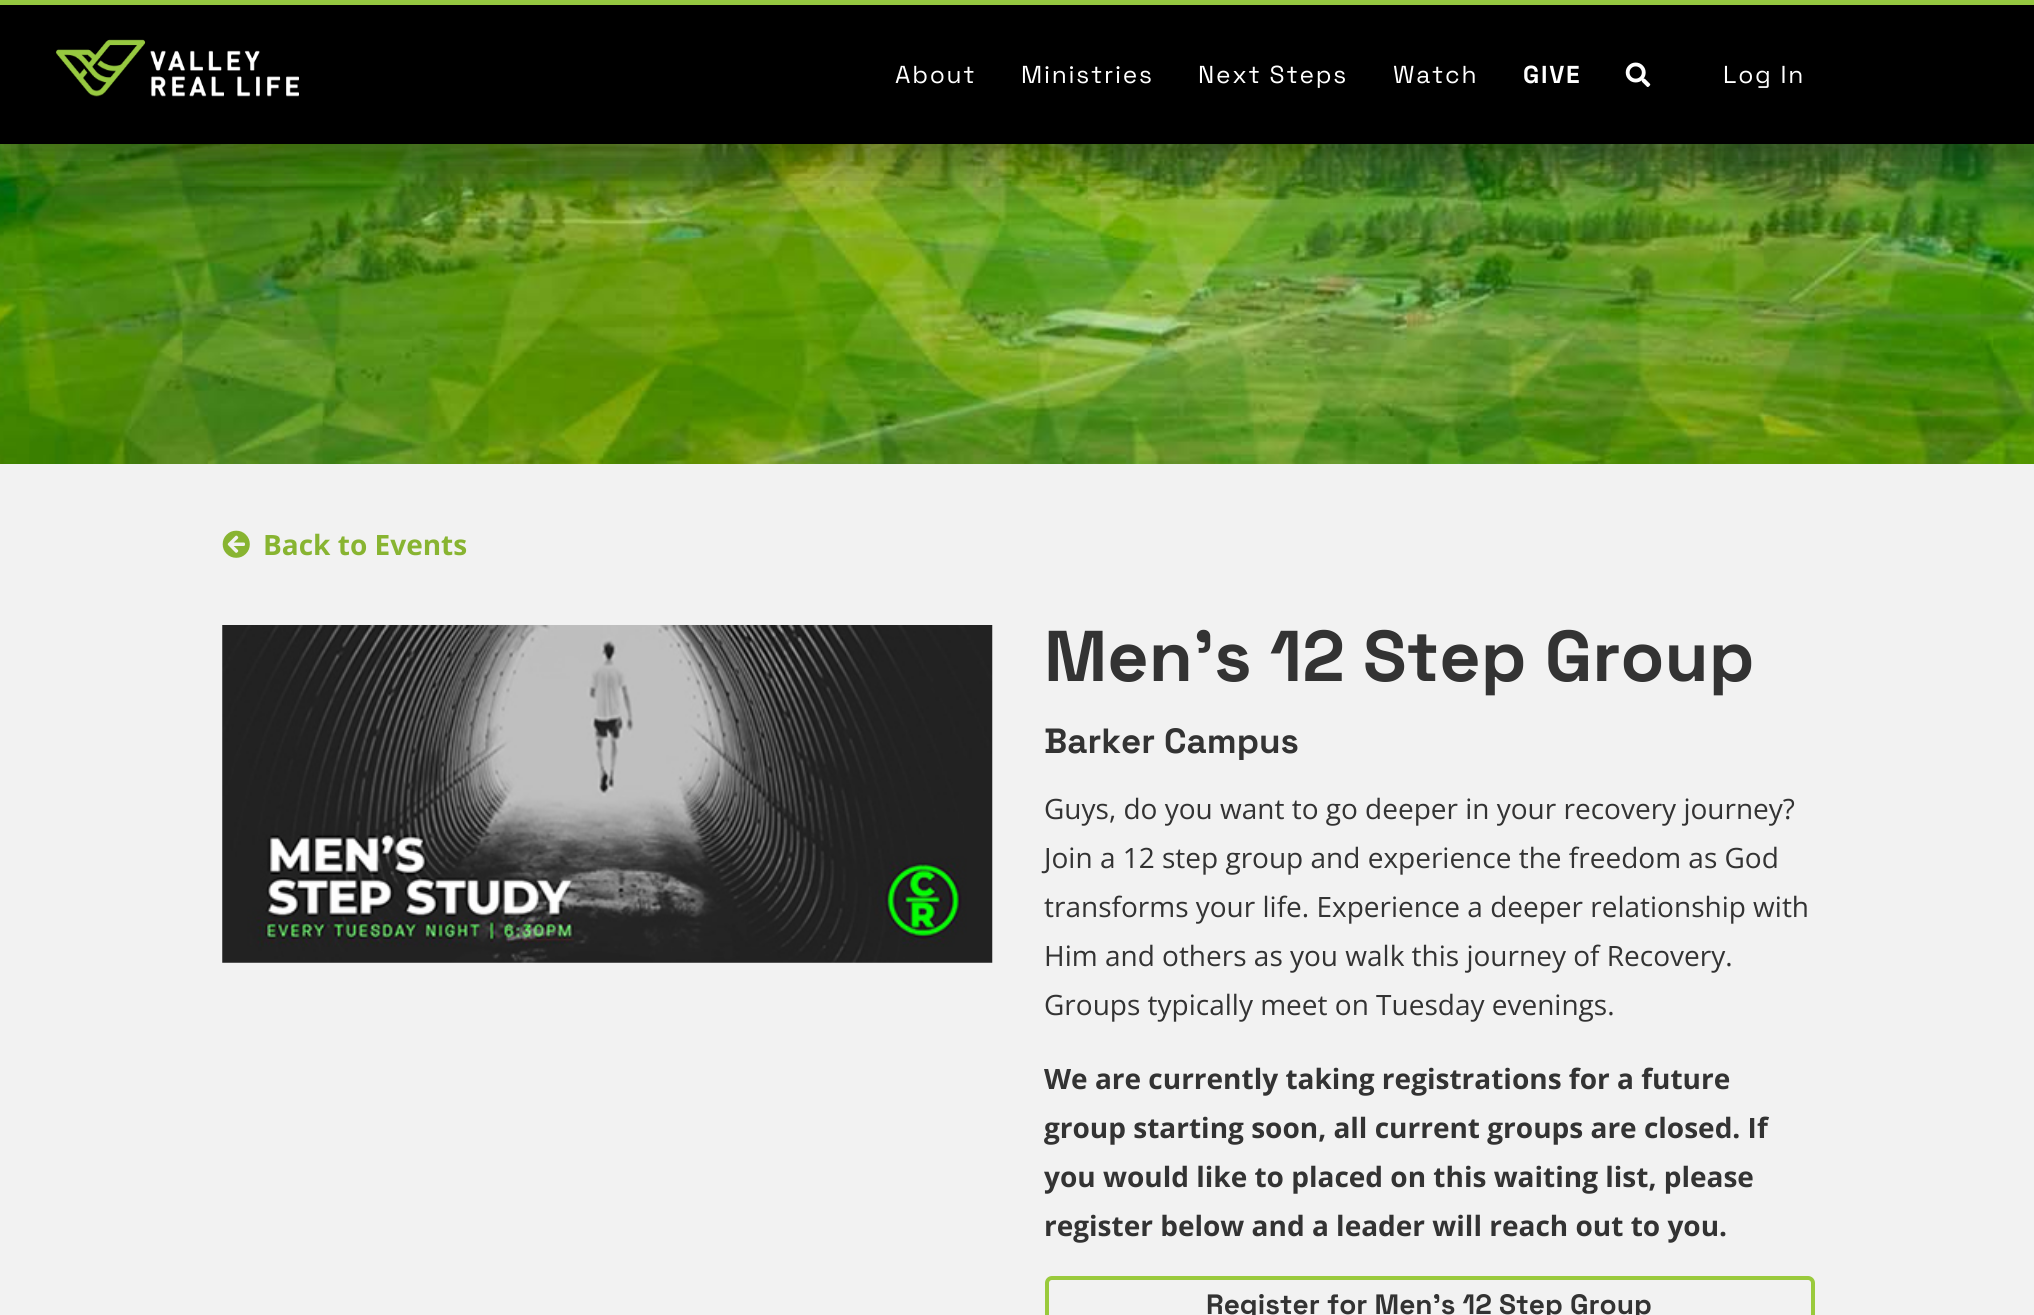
#include <cairo/cairo.h>
#include <math.h>
#include <stddef.h>

static cairo_t *cr;

static void use_color(int r, int g, int b) {
  cairo_set_source_rgb(cr, r / 255.0, g / 255.0, b / 255.0);
}

static void text(double x, double y, const char *s, const char *family, double size, int italic, int bold, int r, int g, int b) {
  cairo_select_font_face(cr, family, italic ? CAIRO_FONT_SLANT_ITALIC : CAIRO_FONT_SLANT_NORMAL,
    bold ? CAIRO_FONT_WEIGHT_BOLD : CAIRO_FONT_WEIGHT_NORMAL);
  cairo_set_font_size(cr, size);
  use_color(r, g, b);
  cairo_move_to(cr, x, y);
  cairo_show_text(cr, s);
}

static void spaced_text(double x, double y, const char *s, double letter, double word) {
  cairo_move_to(cr, x, y);
  while (*s) {
    char ch[5] = {0};
    int n = 0;
    do ch[n++] = *s++; while ((*s & 0xC0) == 0x80);
    cairo_show_text(cr, ch);
    cairo_rel_move_to(cr, letter + word * (*ch == ' '), 0);
  }
}

static void box(double x, double y, double w, double h, int r, int g, int b) {
  use_color(r, g, b);
  cairo_rectangle(cr, x, y, w, h);
  cairo_fill(cr);
}

static void round_rect(double x, double y, double w, double h, double r) {
  cairo_new_sub_path(cr);
  cairo_arc(cr, x + w - r, y + h - r, r, 0, M_PI / 2);
  cairo_arc(cr, x + r, y + h - r, r, M_PI / 2, M_PI);
  cairo_arc(cr, x + r, y + r, r, M_PI, 1.5 * M_PI);
  cairo_arc(cr, x + w - r, y + r, r, 1.5 * M_PI, 2 * M_PI);
  cairo_close_path(cr);
}

static void shadow(double x, double y, double w, double h, double r, double blur, double alpha) {
  cairo_push_group_with_content(cr, CAIRO_CONTENT_ALPHA);
  cairo_set_operator(cr, CAIRO_OPERATOR_SOURCE);
  for (int i = 15; i >= -15 && fmin(w, h) + blur * i / 3 > 0; i -= 2) {
    double e = blur * i / 6;
    cairo_set_source_rgba(cr, 0, 0, 0, alpha * erfc((i - 1) / 8.5) / 2);
    round_rect(x - e, y - e, w + 2 * e, h + 2 * e, fmax(0, fmin(r + e + blur * .6, fmin(w, h) / 2 + e)));
    cairo_fill(cr);
  }
  cairo_pattern_t *soft = cairo_pop_group(cr);
  cairo_mask(cr, soft);
  cairo_pattern_destroy(soft);
}

static void picture(const char *path, double x, double y, double w, double h) {
  cairo_surface_t *image = cairo_image_surface_create_from_png(path);
  cairo_save(cr);
  cairo_set_source_surface(cr, image, x, y);
  cairo_rectangle(cr, x, y, w, h);
  cairo_fill(cr);
  cairo_restore(cr);
  cairo_surface_destroy(image);
}

static void draw(void) {
  use_color(242, 242, 242);
  cairo_paint(cr);
  picture("img_03.png", 0, 144, 2034, 320);
  use_color(0, 0, 0);
  shadow(0, 9, 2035, 143, 0, 9, 0.05);
  shadow(0, 26, 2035, 144, 0, 22, 0.15);
  box(0, 0, 2034, 5, 151, 202, 65);
  use_color(0, 0, 0);
  shadow(0, 14, 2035, 138, 0, 9, 0.05);
  shadow(0, 32, 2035, 138, 0, 22, 0.15);
  box(0, 5, 2034, 139, 0, 0, 0);
  picture("img_01.png", 56, 39, 243, 58);
  picture("img_02.png", 1625, 62, 26, 25);
  picture("img_04.png", 222, 530, 28, 28);
  picture("img_05.png", 222, 625, 771, 338);
  round_rect(1047, 1278, 766, 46, 5);
  use_color(154, 202, 60);
  cairo_set_line_width(cr, 4);
  cairo_stroke(cr);
  cairo_select_font_face(cr, "Space Grotesk", CAIRO_FONT_SLANT_NORMAL, CAIRO_FONT_WEIGHT_NORMAL);
  cairo_set_font_size(cr, 24.5);
  use_color(255, 255, 255);
  spaced_text(895, 83, "About", 1.75, 0);
  spaced_text(1021, 83, "Ministries", 1.75, 0);
  spaced_text(1198, 83, "Next Steps", 1.75, 0);
  spaced_text(1393, 83, "Watch", 1.75, 0);
  cairo_select_font_face(cr, "Space Grotesk", CAIRO_FONT_SLANT_NORMAL, CAIRO_FONT_WEIGHT_BOLD);
  spaced_text(1523, 83, "GIVE", 1.75, 0);
  cairo_select_font_face(cr, "Space Grotesk", CAIRO_FONT_SLANT_NORMAL, CAIRO_FONT_WEIGHT_NORMAL);
  spaced_text(1723, 83, "Log In", 1.75, 0);
  text(263, 555, "Back to Events", "Open Sans", 28, 0, 1, 136, 180, 49);
  text(1044, 681, "Men's 12 Step Group", "Space Grotesk", 71.75, 0, 1, 51, 51, 51);
  text(1044, 753, "Barker Campus", "Space Grotesk", 35, 0, 1, 51, 51, 51);
  text(1044, 819, "Guys, do you want to go deeper in your recovery journey?", "Open Sans", 28, 0, 0, 51, 51, 51);
  text(1044, 868, "Join a 12 step group and experience the freedom as God", "Open Sans", 28, 0, 0, 51, 51, 51);
  text(1044, 917, "transforms your life. Experience a deeper relationship with", "Open Sans", 28, 0, 0, 51, 51, 51);
  text(1044, 966, "Him and others as you walk this journey of Recovery.", "Open Sans", 28, 0, 0, 51, 51, 51);
  text(1044, 1015, "Groups typically meet on Tuesday evenings.", "Open Sans", 28, 0, 0, 51, 51, 51);
  text(1044, 1089, "We are currently taking registrations for a future", "Open Sans", 28, 0, 1, 51, 51, 51);
  text(1044, 1138, "group starting soon, all current groups are closed. If", "Open Sans", 28, 0, 1, 51, 51, 51);
  text(1044, 1187, "you would like to placed on this waiting list, please", "Open Sans", 28, 0, 1, 51, 51, 51);
  text(1044, 1236, "register below and a leader will reach out to you.", "Open Sans", 28, 0, 1, 51, 51, 51);
  text(1206, 1314, "Register for Men's 12 Step Group", "Space Grotesk", 28, 0, 1, 51, 51, 51);
}

int main(void) {
  cairo_surface_t *surface = cairo_image_surface_create(CAIRO_FORMAT_RGB24, 2034, 1315);
  cr = cairo_create(surface);
  cairo_font_options_t *options = cairo_font_options_create();
  cairo_font_options_set_hint_metrics(options, CAIRO_HINT_METRICS_OFF);
  cairo_font_options_set_hint_style(options, CAIRO_HINT_STYLE_NONE);
  cairo_set_font_options(cr, options);
  cairo_set_miter_limit(cr, 4);
  draw();
  cairo_surface_write_to_png(surface, "out.png");
  cairo_font_options_destroy(options);
  cairo_destroy(cr);
  cairo_surface_destroy(surface);
  return 0;
}
